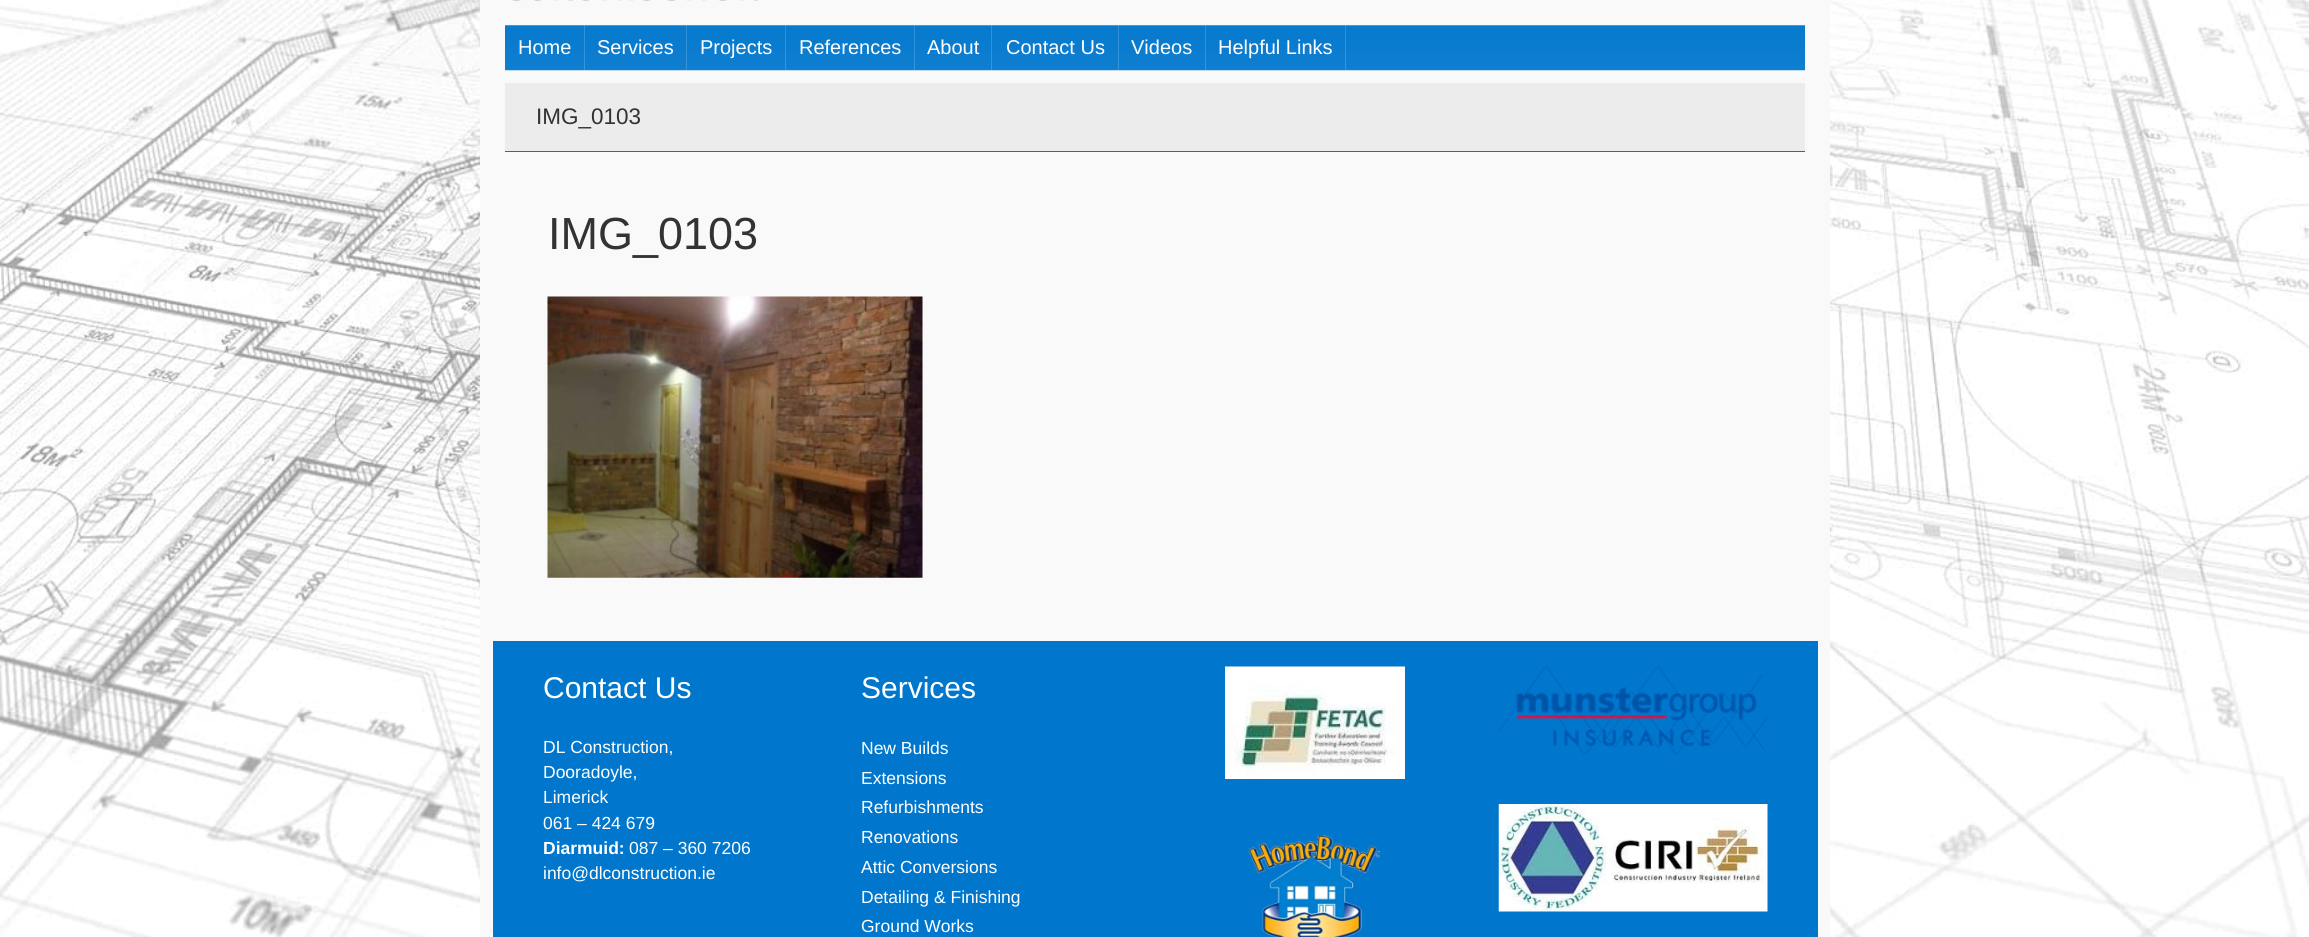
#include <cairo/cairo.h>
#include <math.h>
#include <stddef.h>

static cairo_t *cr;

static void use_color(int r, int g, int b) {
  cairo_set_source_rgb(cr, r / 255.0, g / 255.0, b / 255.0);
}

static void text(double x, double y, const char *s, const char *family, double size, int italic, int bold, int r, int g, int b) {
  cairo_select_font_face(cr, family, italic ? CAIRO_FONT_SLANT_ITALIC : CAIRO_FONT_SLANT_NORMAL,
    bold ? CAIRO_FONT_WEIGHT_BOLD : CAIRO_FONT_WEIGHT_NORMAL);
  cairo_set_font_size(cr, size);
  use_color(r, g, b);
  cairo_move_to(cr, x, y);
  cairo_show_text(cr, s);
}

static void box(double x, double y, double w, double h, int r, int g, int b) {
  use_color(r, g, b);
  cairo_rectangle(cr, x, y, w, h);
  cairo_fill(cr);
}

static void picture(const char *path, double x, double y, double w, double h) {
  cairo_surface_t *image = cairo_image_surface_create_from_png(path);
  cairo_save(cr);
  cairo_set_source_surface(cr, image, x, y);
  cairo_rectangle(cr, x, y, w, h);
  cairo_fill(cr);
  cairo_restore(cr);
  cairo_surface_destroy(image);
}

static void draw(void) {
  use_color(255, 255, 255);
  cairo_paint(cr);
  picture("img_01.png", 0, 0, 2309, 937);
  box(480, 0, 1350, 640, 249, 249, 249);
  picture("img_02.png", 512, 0, 246, 1);
  picture("img_03.png", 505, 25, 1300, 46);
  cairo_set_source_rgba(cr, 1, 1, 1, 0.17);
  cairo_rectangle(cr, 584, 25, 1, 45);
  cairo_fill(cr);
  cairo_rectangle(cr, 686, 25, 1, 45);
  cairo_fill(cr);
  cairo_rectangle(cr, 785, 25, 1, 45);
  cairo_fill(cr);
  cairo_rectangle(cr, 914, 25, 1, 45);
  cairo_fill(cr);
  cairo_rectangle(cr, 991, 25, 1, 45);
  cairo_fill(cr);
  cairo_rectangle(cr, 1118, 25, 1, 45);
  cairo_fill(cr);
  cairo_rectangle(cr, 1205, 25, 1, 45);
  cairo_fill(cr);
  cairo_rectangle(cr, 1345, 25, 1, 45);
  cairo_fill(cr);
  box(505, 83, 1300, 68, 236, 236, 236);
  box(505, 151, 1300, 1, 0, 119, 205);
  picture("img_04.png", 547, 296, 376, 282);
  box(493, 641, 1325, 296, 0, 119, 205);
  box(493, 640, 1325, 1, 249, 249, 249);
  box(1818, 640, 12, 297, 249, 249, 249);
  box(480, 640, 13, 297, 249, 249, 249);
  picture("img_05.png", 1225, 666, 180, 113);
  picture("img_06.png", 1248, 835, 132, 102);
  picture("img_07.png", 1499, 666, 269, 88);
  picture("img_08.png", 1498, 804, 270, 108);
  text(518, 54, "Home", "Liberation Sans", 20, 0, 0, 255, 255, 255);
  text(597, 54, "Services", "Liberation Sans", 20, 0, 0, 255, 255, 255);
  text(700, 54, "Projects", "Liberation Sans", 20, 0, 0, 255, 255, 255);
  text(799, 54, "References", "Liberation Sans", 20, 0, 0, 255, 255, 255);
  text(927, 54, "About", "Liberation Sans", 20, 0, 0, 255, 255, 255);
  text(1006, 54, "Contact Us", "Liberation Sans", 20, 0, 0, 255, 255, 255);
  text(1131, 54, "Videos", "Liberation Sans", 20, 0, 0, 255, 255, 255);
  text(1218, 54, "Helpful Links", "Liberation Sans", 20, 0, 0, 255, 255, 255);
  text(536, 124, "IMG_0103", "Liberation Sans", 22.5, 0, 0, 51, 51, 51);
  text(548, 249, "IMG_0103", "Liberation Sans", 45, 0, 0, 51, 51, 51);
  text(543, 698, "Contact Us", "Liberation Sans", 30, 0, 0, 255, 255, 255);
  text(543, 753, "DL Construction,", "Liberation Sans", 17.5, 0, 0, 255, 255, 255);
  text(543, 778, "Dooradoyle,", "Liberation Sans", 17.5, 0, 0, 255, 255, 255);
  text(543, 803, "Limerick", "Liberation Sans", 17.5, 0, 0, 255, 255, 255);
  text(543, 829, "061 – 424 679", "Liberation Sans", 17.5, 0, 0, 255, 255, 255);
  text(543, 854, "Diarmuid:", "Liberation Sans", 17.5, 0, 1, 255, 255, 255);
  text(629, 854, "087 – 360 7206", "Liberation Sans", 17.5, 0, 0, 255, 255, 255);
  text(543, 879, "info@dlconstruction.ie", "Liberation Sans", 17.5, 0, 0, 255, 255, 255);
  text(861, 698, "Services", "Liberation Sans", 30, 0, 0, 255, 255, 255);
  text(861, 754, "New Builds", "Liberation Sans", 17.5, 0, 0, 255, 255, 255);
  text(861, 784, "Extensions", "Liberation Sans", 17.5, 0, 0, 255, 255, 255);
  text(861, 813, "Refurbishments", "Liberation Sans", 17.5, 0, 0, 255, 255, 255);
  text(861, 843, "Renovations", "Liberation Sans", 17.5, 0, 0, 255, 255, 255);
  text(861, 873, "Attic Conversions", "Liberation Sans", 17.5, 0, 0, 255, 255, 255);
  text(861, 903, "Detailing & Finishing", "Liberation Sans", 17.5, 0, 0, 255, 255, 255);
  text(861, 932, "Ground Works", "Liberation Sans", 17.5, 0, 0, 255, 255, 255);
}

int main(void) {
  cairo_surface_t *surface = cairo_image_surface_create(CAIRO_FORMAT_RGB24, 2309, 937);
  cr = cairo_create(surface);
  cairo_font_options_t *options = cairo_font_options_create();
  cairo_font_options_set_hint_metrics(options, CAIRO_HINT_METRICS_OFF);
  cairo_font_options_set_hint_style(options, CAIRO_HINT_STYLE_NONE);
  cairo_set_font_options(cr, options);
  cairo_set_miter_limit(cr, 4);
  draw();
  cairo_surface_write_to_png(surface, "out.png");
  cairo_font_options_destroy(options);
  cairo_destroy(cr);
  cairo_surface_destroy(surface);
  return 0;
}
